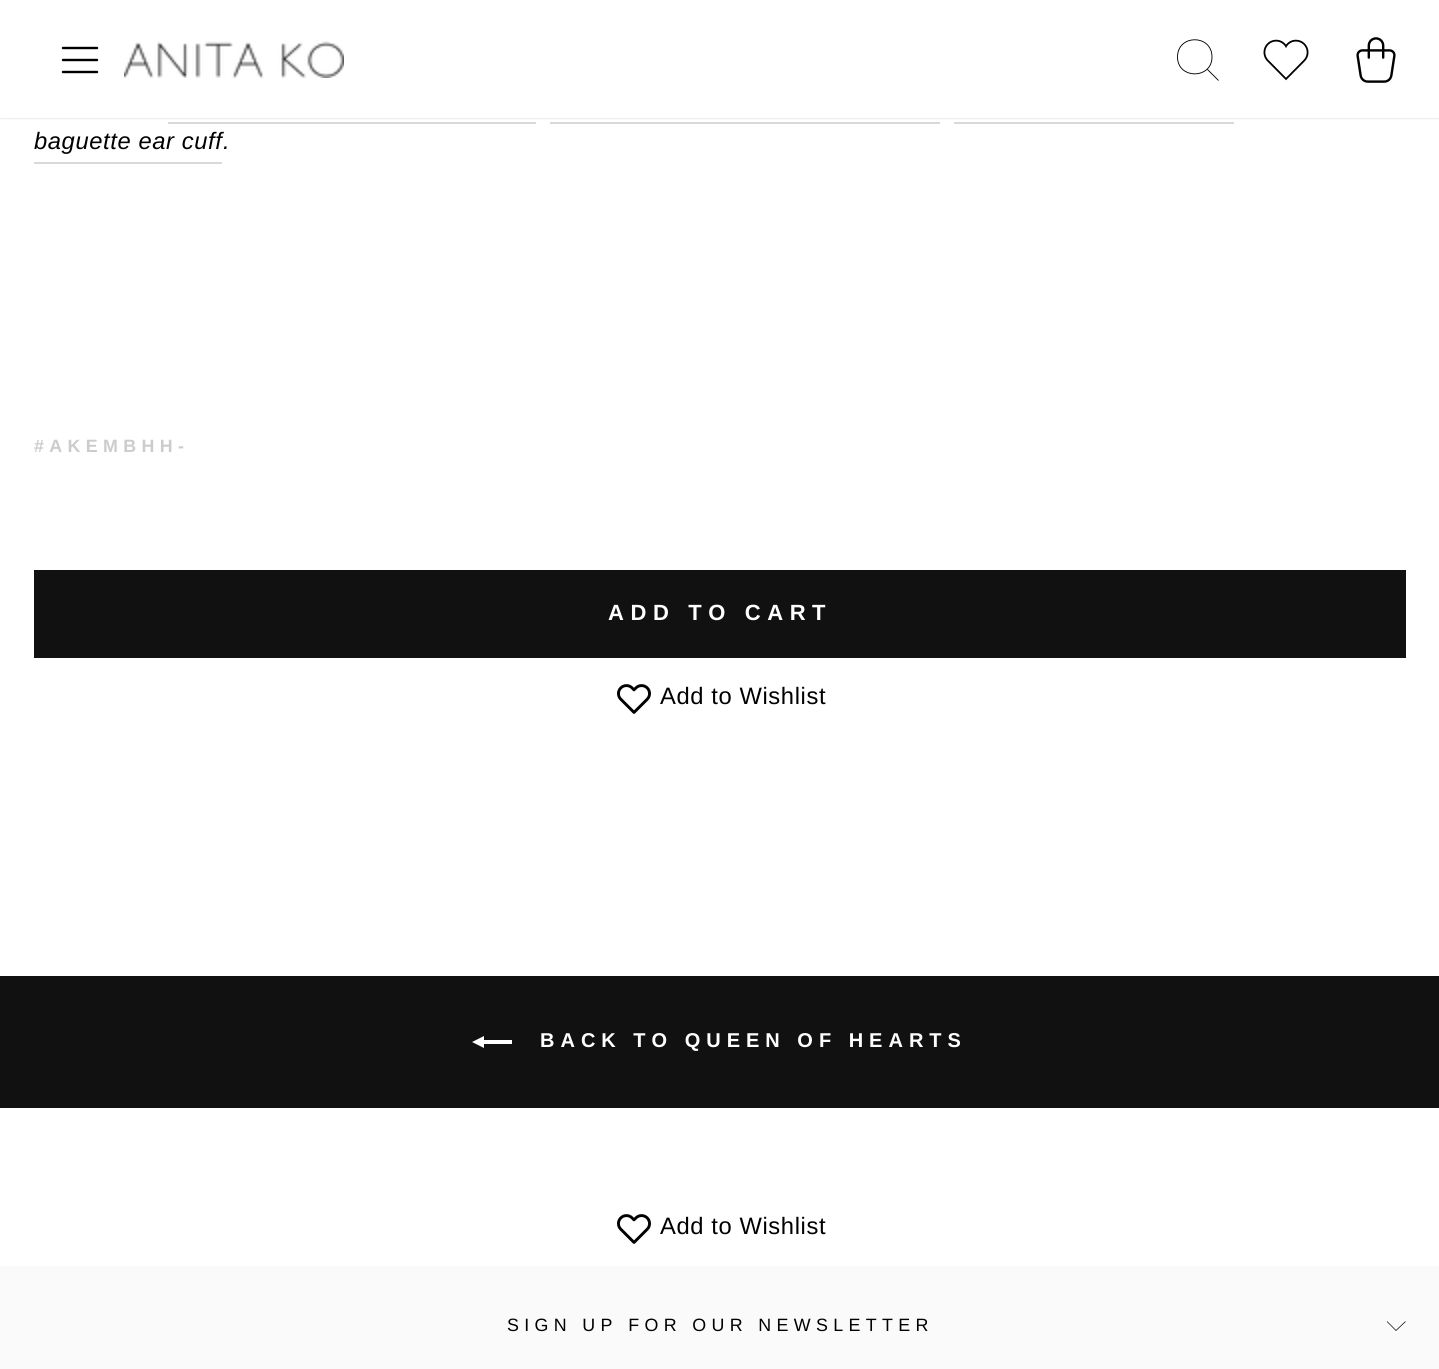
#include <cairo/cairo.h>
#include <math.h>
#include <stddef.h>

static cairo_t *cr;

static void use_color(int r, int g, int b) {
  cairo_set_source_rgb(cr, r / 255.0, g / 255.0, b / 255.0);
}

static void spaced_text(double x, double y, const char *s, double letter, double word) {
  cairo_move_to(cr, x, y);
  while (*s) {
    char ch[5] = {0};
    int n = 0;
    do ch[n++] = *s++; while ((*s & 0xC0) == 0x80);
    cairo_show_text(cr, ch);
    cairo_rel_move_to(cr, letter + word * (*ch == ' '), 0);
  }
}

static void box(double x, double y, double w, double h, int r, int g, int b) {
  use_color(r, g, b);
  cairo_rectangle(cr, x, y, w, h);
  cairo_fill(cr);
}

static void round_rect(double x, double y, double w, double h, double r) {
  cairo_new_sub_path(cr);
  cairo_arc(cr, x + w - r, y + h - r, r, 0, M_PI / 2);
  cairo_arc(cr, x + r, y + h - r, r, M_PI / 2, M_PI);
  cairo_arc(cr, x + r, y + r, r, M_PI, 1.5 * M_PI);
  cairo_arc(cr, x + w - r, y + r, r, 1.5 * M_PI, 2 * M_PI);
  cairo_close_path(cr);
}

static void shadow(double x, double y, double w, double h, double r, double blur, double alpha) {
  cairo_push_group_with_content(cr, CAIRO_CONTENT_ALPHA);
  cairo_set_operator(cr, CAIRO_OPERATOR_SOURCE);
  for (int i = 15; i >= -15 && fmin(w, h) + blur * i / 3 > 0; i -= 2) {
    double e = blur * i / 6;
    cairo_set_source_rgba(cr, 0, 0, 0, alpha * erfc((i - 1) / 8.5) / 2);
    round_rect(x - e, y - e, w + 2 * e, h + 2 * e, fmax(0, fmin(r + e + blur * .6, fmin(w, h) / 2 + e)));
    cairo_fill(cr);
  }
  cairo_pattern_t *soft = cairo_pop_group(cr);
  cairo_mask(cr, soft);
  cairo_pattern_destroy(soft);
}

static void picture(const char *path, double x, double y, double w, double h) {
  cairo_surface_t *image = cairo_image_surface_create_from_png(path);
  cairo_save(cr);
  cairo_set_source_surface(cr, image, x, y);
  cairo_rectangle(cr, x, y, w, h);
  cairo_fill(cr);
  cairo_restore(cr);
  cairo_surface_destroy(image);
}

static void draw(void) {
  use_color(255, 255, 255);
  cairo_paint(cr);
  use_color(0, 0, 0);
  shadow(0, 0, 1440, 118, 0, 1, 0.2);
  box(0, 0, 1439, 118, 255, 255, 255);
  cairo_new_path(cr);
  cairo_move_to(cr, 63, 48);
  cairo_line_to(cr, 97, 48);
  cairo_move_to(cr, 63, 60);
  cairo_line_to(cr, 97, 60);
  cairo_move_to(cr, 63, 72);
  cairo_line_to(cr, 97, 72);
  use_color(0, 0, 0);
  cairo_set_line_width(cr, 2.4);
  cairo_set_line_cap(cr, CAIRO_LINE_CAP_ROUND);
  cairo_stroke(cr);
  picture("img_01.png", 124, 41, 220, 37);
  cairo_new_path(cr);
  cairo_move_to(cr, 1212, 57);
  cairo_curve_to(cr, 1212, 79.5, 1177.5, 79.5, 1177.5, 57);
  cairo_curve_to(cr, 1177.5, 34, 1212, 34, 1212, 57);
  cairo_close_path(cr);
  cairo_move_to(cr, 1218.5, 80.5);
  cairo_line_to(cr, 1207.5, 69.5);
  cairo_set_line_width(cr, 0.9);
  cairo_set_line_cap(cr, CAIRO_LINE_CAP_BUTT);
  cairo_stroke(cr);
  picture("img_02.png", 1263, 39, 46, 42);
  picture("img_03.png", 1356, 37, 40, 46);
  box(168, 122, 368, 2, 217, 217, 217);
  box(550, 122, 390, 2, 217, 217, 217);
  box(954, 122, 280, 2, 217, 217, 217);
  box(34, 162, 188, 2, 217, 217, 217);
  box(34, 570, 1372, 88, 17, 17, 17);
  picture("img_04.png", 617, 684, 34, 30);
  box(0, 976, 1439, 132, 17, 17, 17);
  use_color(255, 255, 255);
  cairo_new_path(cr);
  cairo_move_to(cr, 512, 1040);
  cairo_line_to(cr, 512, 1044);
  cairo_line_to(cr, 484, 1044);
  cairo_line_to(cr, 484, 1048);
  cairo_line_to(cr, 472, 1042);
  cairo_line_to(cr, 484, 1036);
  cairo_line_to(cr, 484, 1040);
  cairo_close_path(cr);
  cairo_fill(cr);
  picture("img_04.png", 617, 1214, 34, 30);
  box(0, 1266, 1439, 103, 250, 250, 250);
  cairo_new_path(cr);
  cairo_move_to(cr, 1387, 1321.5);
  cairo_line_to(cr, 1396, 1330.5);
  cairo_line_to(cr, 1405.5, 1321.5);
  use_color(0, 0, 0);
  cairo_set_line_width(cr, 0.7);
  cairo_stroke(cr);
  cairo_select_font_face(cr, "Liberation Sans", CAIRO_FONT_SLANT_ITALIC, CAIRO_FONT_WEIGHT_NORMAL);
  cairo_set_font_size(cr, 23.75);
  spaced_text(223, 149, ".", 0.6, 0);
  spaced_text(34, 149, "baguette ear cuff", 0.6, 0);
  cairo_select_font_face(cr, "Liberation Sans", CAIRO_FONT_SLANT_NORMAL, CAIRO_FONT_WEIGHT_BOLD);
  cairo_set_font_size(cr, 17.85);
  use_color(204, 204, 204);
  spaced_text(34, 452, "#AKEMBHH-", 5.35, 0);
  cairo_set_font_size(cr, 22);
  use_color(255, 255, 255);
  spaced_text(608, 620, "ADD TO CART", 6.6, 0);
  cairo_select_font_face(cr, "Liberation Sans", CAIRO_FONT_SLANT_NORMAL, CAIRO_FONT_WEIGHT_NORMAL);
  cairo_set_font_size(cr, 23.75);
  use_color(0, 0, 0);
  spaced_text(660, 704, "Add to Wishlist", 0.6, 0);
  cairo_select_font_face(cr, "Liberation Sans", CAIRO_FONT_SLANT_NORMAL, CAIRO_FONT_WEIGHT_BOLD);
  cairo_set_font_size(cr, 20);
  use_color(255, 255, 255);
  spaced_text(540, 1047, "BACK TO QUEEN OF HEARTS", 6, 0);
  cairo_select_font_face(cr, "Liberation Sans", CAIRO_FONT_SLANT_NORMAL, CAIRO_FONT_WEIGHT_NORMAL);
  cairo_set_font_size(cr, 23.75);
  use_color(0, 0, 0);
  spaced_text(660, 1234, "Add to Wishlist", 0.6, 0);
  cairo_set_font_size(cr, 17.85);
  spaced_text(507, 1331, "SIGN UP FOR OUR NEWSLETTER", 5.35, 0);
}

int main(void) {
  cairo_surface_t *surface = cairo_image_surface_create(CAIRO_FORMAT_RGB24, 1439, 1369);
  cr = cairo_create(surface);
  cairo_font_options_t *options = cairo_font_options_create();
  cairo_font_options_set_hint_metrics(options, CAIRO_HINT_METRICS_OFF);
  cairo_font_options_set_hint_style(options, CAIRO_HINT_STYLE_NONE);
  cairo_set_font_options(cr, options);
  cairo_set_miter_limit(cr, 4);
  draw();
  cairo_surface_write_to_png(surface, "out.png");
  cairo_font_options_destroy(options);
  cairo_destroy(cr);
  cairo_surface_destroy(surface);
  return 0;
}
